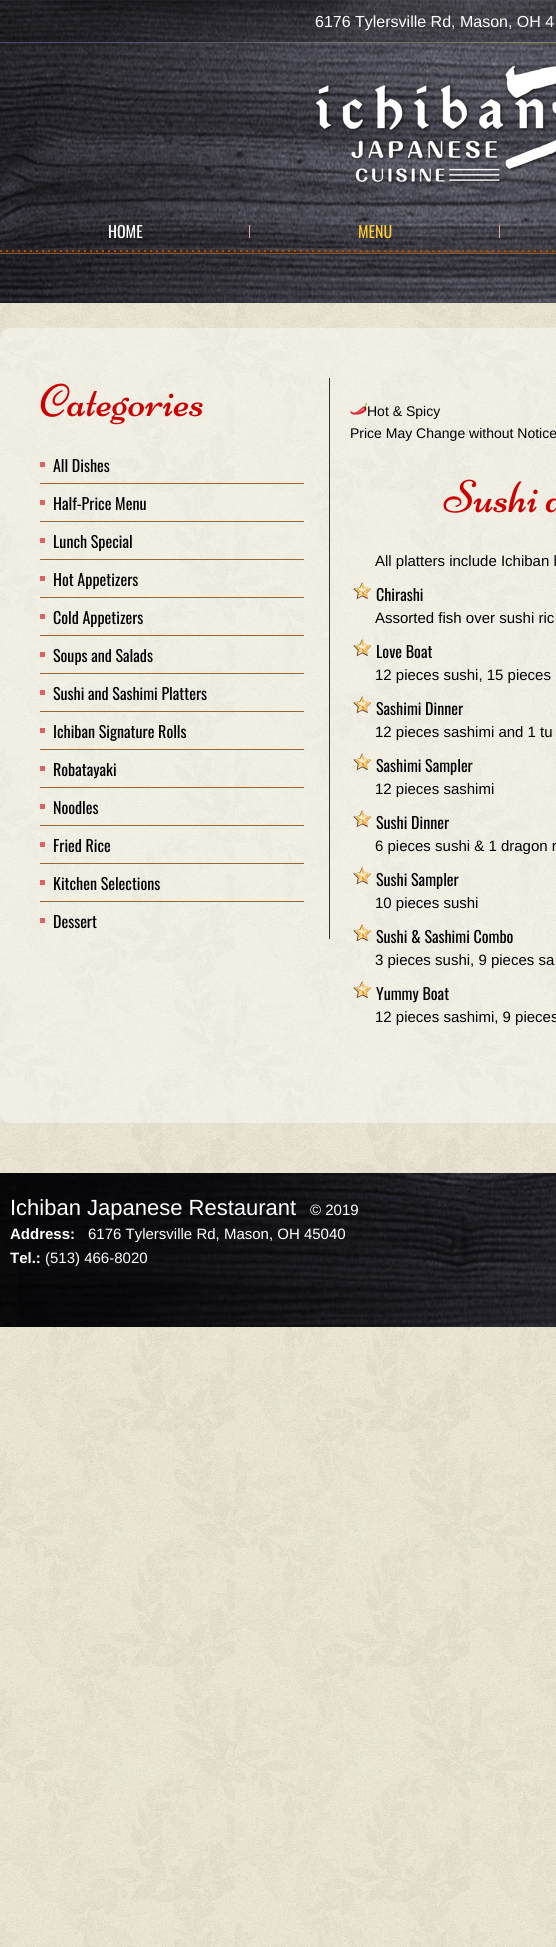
#include <cairo/cairo.h>
#include <math.h>
#include <stddef.h>

static cairo_t *cr;

static void use_color(int r, int g, int b) {
  cairo_set_source_rgb(cr, r / 255.0, g / 255.0, b / 255.0);
}

static void text(double x, double y, const char *s, const char *family, double size, int italic, int bold, int r, int g, int b) {
  cairo_select_font_face(cr, family, italic ? CAIRO_FONT_SLANT_ITALIC : CAIRO_FONT_SLANT_NORMAL,
    bold ? CAIRO_FONT_WEIGHT_BOLD : CAIRO_FONT_WEIGHT_NORMAL);
  cairo_set_font_size(cr, size);
  use_color(r, g, b);
  cairo_move_to(cr, x, y);
  cairo_show_text(cr, s);
}

static void box(double x, double y, double w, double h, int r, int g, int b) {
  use_color(r, g, b);
  cairo_rectangle(cr, x, y, w, h);
  cairo_fill(cr);
}

static void round_rect(double x, double y, double w, double h, double r) {
  cairo_new_sub_path(cr);
  cairo_arc(cr, x + w - r, y + h - r, r, 0, M_PI / 2);
  cairo_arc(cr, x + r, y + h - r, r, M_PI / 2, M_PI);
  cairo_arc(cr, x + r, y + r, r, M_PI, 1.5 * M_PI);
  cairo_arc(cr, x + w - r, y + r, r, 1.5 * M_PI, 2 * M_PI);
  cairo_close_path(cr);
}

static void picture(const char *path, double x, double y, double w, double h) {
  cairo_surface_t *image = cairo_image_surface_create_from_png(path);
  cairo_save(cr);
  cairo_set_source_surface(cr, image, x, y);
  cairo_rectangle(cr, x, y, w, h);
  cairo_fill(cr);
  cairo_restore(cr);
  cairo_surface_destroy(image);
}

static void draw(void) {
  use_color(255, 255, 255);
  cairo_paint(cr);
  picture("img_01.png", 0, 1327, 556, 620);
  picture("img_02.png", 0, 303, 556, 870);
  picture("img_03.png", 0, 0, 556, 303);
  picture("img_04.png", 316, 65, 240, 120);
  picture("img_05.png", 0, 248, 556, 6);
  picture("img_06.png", 249, 225, 1, 13);
  picture("img_06.png", 499, 225, 1, 13);
  cairo_set_source_rgba(cr, 1, 1, 1, 0.4);
  round_rect(0, 328, 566, 795, 10);
  cairo_fill(cr);
  box(329, 378, 1, 561, 51, 51, 51);
  picture("img_07.png", 40, 383, 163, 42);
  box(40, 462, 5, 5, 221, 98, 97);
  box(40, 500, 5, 5, 221, 98, 97);
  box(40, 483, 264, 1, 153, 102, 51);
  box(40, 538, 5, 5, 221, 98, 97);
  box(40, 521, 264, 1, 153, 102, 51);
  box(40, 576, 5, 5, 221, 98, 97);
  box(40, 559, 264, 1, 153, 102, 51);
  box(40, 614, 5, 5, 221, 98, 97);
  box(40, 597, 264, 1, 153, 102, 51);
  box(40, 652, 5, 5, 221, 98, 97);
  box(40, 635, 264, 1, 153, 102, 51);
  box(40, 690, 5, 5, 221, 98, 97);
  box(40, 673, 264, 1, 153, 102, 51);
  box(40, 728, 5, 5, 221, 98, 97);
  box(40, 711, 264, 1, 153, 102, 51);
  box(40, 766, 5, 5, 221, 98, 97);
  box(40, 749, 264, 1, 153, 102, 51);
  box(40, 804, 5, 5, 221, 98, 97);
  box(40, 787, 264, 1, 153, 102, 51);
  box(40, 842, 5, 5, 221, 98, 97);
  box(40, 825, 264, 1, 153, 102, 51);
  box(40, 880, 5, 5, 221, 98, 97);
  box(40, 863, 264, 1, 153, 102, 51);
  box(40, 918, 5, 5, 221, 98, 97);
  box(40, 901, 264, 1, 153, 102, 51);
  picture("img_08.png", 350, 402, 17, 13);
  picture("img_09.png", 443, 479, 113, 34);
  picture("img_10.png", 353, 582, 18, 18);
  picture("img_11.png", 353, 639, 18, 18);
  picture("img_12.png", 353, 696, 18, 18);
  picture("img_13.png", 353, 753, 18, 18);
  picture("img_14.png", 353, 810, 18, 18);
  picture("img_15.png", 353, 867, 18, 18);
  picture("img_16.png", 353, 924, 18, 18);
  picture("img_17.png", 353, 981, 18, 18);
  picture("img_18.png", 0, 1173, 556, 154);
  text(315, 27, "6176 Tylersville Rd, Mason, OH 4", "Liberation Sans", 16, 0, 0, 255, 255, 255);
  text(108, 238, "HOME", "Oswald", 16, 0, 0, 255, 255, 255);
  text(358, 238, "MENU", "Oswald", 16, 0, 0, 255, 204, 51);
  text(53, 472, "All Dishes", "Oswald", 16, 0, 0, 0, 0, 0);
  text(53, 510, "Half-Price Menu", "Oswald", 16, 0, 0, 0, 0, 0);
  text(53, 548, "Lunch Special", "Oswald", 16, 0, 0, 0, 0, 0);
  text(53, 586, "Hot Appetizers", "Oswald", 16, 0, 0, 0, 0, 0);
  text(53, 624, "Cold Appetizers", "Oswald", 16, 0, 0, 0, 0, 0);
  text(53, 662, "Soups and Salads", "Oswald", 16, 0, 0, 0, 0, 0);
  text(53, 700, "Sushi and Sashimi Platters", "Oswald", 16, 0, 0, 0, 0, 0);
  text(53, 738, "Ichiban Signature Rolls", "Oswald", 16, 0, 0, 0, 0, 0);
  text(53, 776, "Robatayaki", "Oswald", 16, 0, 0, 0, 0, 0);
  text(53, 814, "Noodles", "Oswald", 16, 0, 0, 0, 0, 0);
  text(53, 852, "Fried Rice", "Oswald", 16, 0, 0, 0, 0, 0);
  text(53, 890, "Kitchen Selections", "Oswald", 16, 0, 0, 0, 0, 0);
  text(53, 928, "Dessert", "Oswald", 16, 0, 0, 0, 0, 0);
  text(367, 416, "Hot & Spicy", "Liberation Sans", 14, 0, 0, 0, 0, 0);
  text(350, 438, "Price May Change without Notice", "Liberation Sans", 14, 0, 0, 0, 0, 0);
  text(375, 566, "All platters include Ichiban h", "Liberation Sans", 15, 0, 0, 0, 0, 0);
  text(376, 601, "Chirashi", "Oswald", 16, 0, 0, 0, 0, 0);
  text(375, 623, "Assorted fish over sushi ric", "Liberation Sans", 15, 0, 0, 0, 0, 0);
  text(376, 658, "Love Boat", "Oswald", 16, 0, 0, 0, 0, 0);
  text(375, 680, "12 pieces sushi, 15 pieces", "Liberation Sans", 15, 0, 0, 0, 0, 0);
  text(376, 715, "Sashimi Dinner", "Oswald", 16, 0, 0, 0, 0, 0);
  text(375, 737, "12 pieces sashimi and 1 tu", "Liberation Sans", 15, 0, 0, 0, 0, 0);
  text(376, 772, "Sashimi Sampler", "Oswald", 16, 0, 0, 0, 0, 0);
  text(375, 794, "12 pieces sashimi", "Liberation Sans", 15, 0, 0, 0, 0, 0);
  text(376, 829, "Sushi Dinner", "Oswald", 16, 0, 0, 0, 0, 0);
  text(375, 851, "6 pieces sushi & 1 dragon r", "Liberation Sans", 15, 0, 0, 0, 0, 0);
  text(376, 886, "Sushi Sampler", "Oswald", 16, 0, 0, 0, 0, 0);
  text(375, 908, "10 pieces sushi", "Liberation Sans", 15, 0, 0, 0, 0, 0);
  text(376, 943, "Sushi & Sashimi Combo", "Oswald", 16, 0, 0, 0, 0, 0);
  text(375, 965, "3 pieces sushi, 9 pieces sa", "Liberation Sans", 15, 0, 0, 0, 0, 0);
  text(376, 1000, "Yummy Boat", "Oswald", 16, 0, 0, 0, 0, 0);
  text(375, 1022, "12 pieces sashimi, 9 pieces", "Liberation Sans", 15, 0, 0, 0, 0, 0);
  text(10, 1215, "Ichiban Japanese Restaurant", "Liberation Sans", 22, 0, 0, 255, 255, 255);
  text(310, 1215, "© 2019", "Liberation Sans", 15, 0, 0, 255, 255, 255);
  text(10, 1239, "Address:", "Liberation Sans", 15, 0, 1, 255, 255, 255);
  text(88, 1239, "6176 Tylersville Rd, Mason, OH 45040", "Liberation Sans", 15, 0, 0, 255, 255, 255);
  text(10, 1263, "Tel.:", "Liberation Sans", 15, 0, 1, 255, 255, 255);
  text(45, 1263, "(513) 466-8020", "Liberation Sans", 15, 0, 0, 255, 255, 255);
}

int main(void) {
  cairo_surface_t *surface = cairo_image_surface_create(CAIRO_FORMAT_RGB24, 556, 1947);
  cr = cairo_create(surface);
  cairo_font_options_t *options = cairo_font_options_create();
  cairo_font_options_set_hint_metrics(options, CAIRO_HINT_METRICS_OFF);
  cairo_font_options_set_hint_style(options, CAIRO_HINT_STYLE_NONE);
  cairo_set_font_options(cr, options);
  cairo_set_miter_limit(cr, 4);
  draw();
  cairo_surface_write_to_png(surface, "out.png");
  cairo_font_options_destroy(options);
  cairo_destroy(cr);
  cairo_surface_destroy(surface);
  return 0;
}
